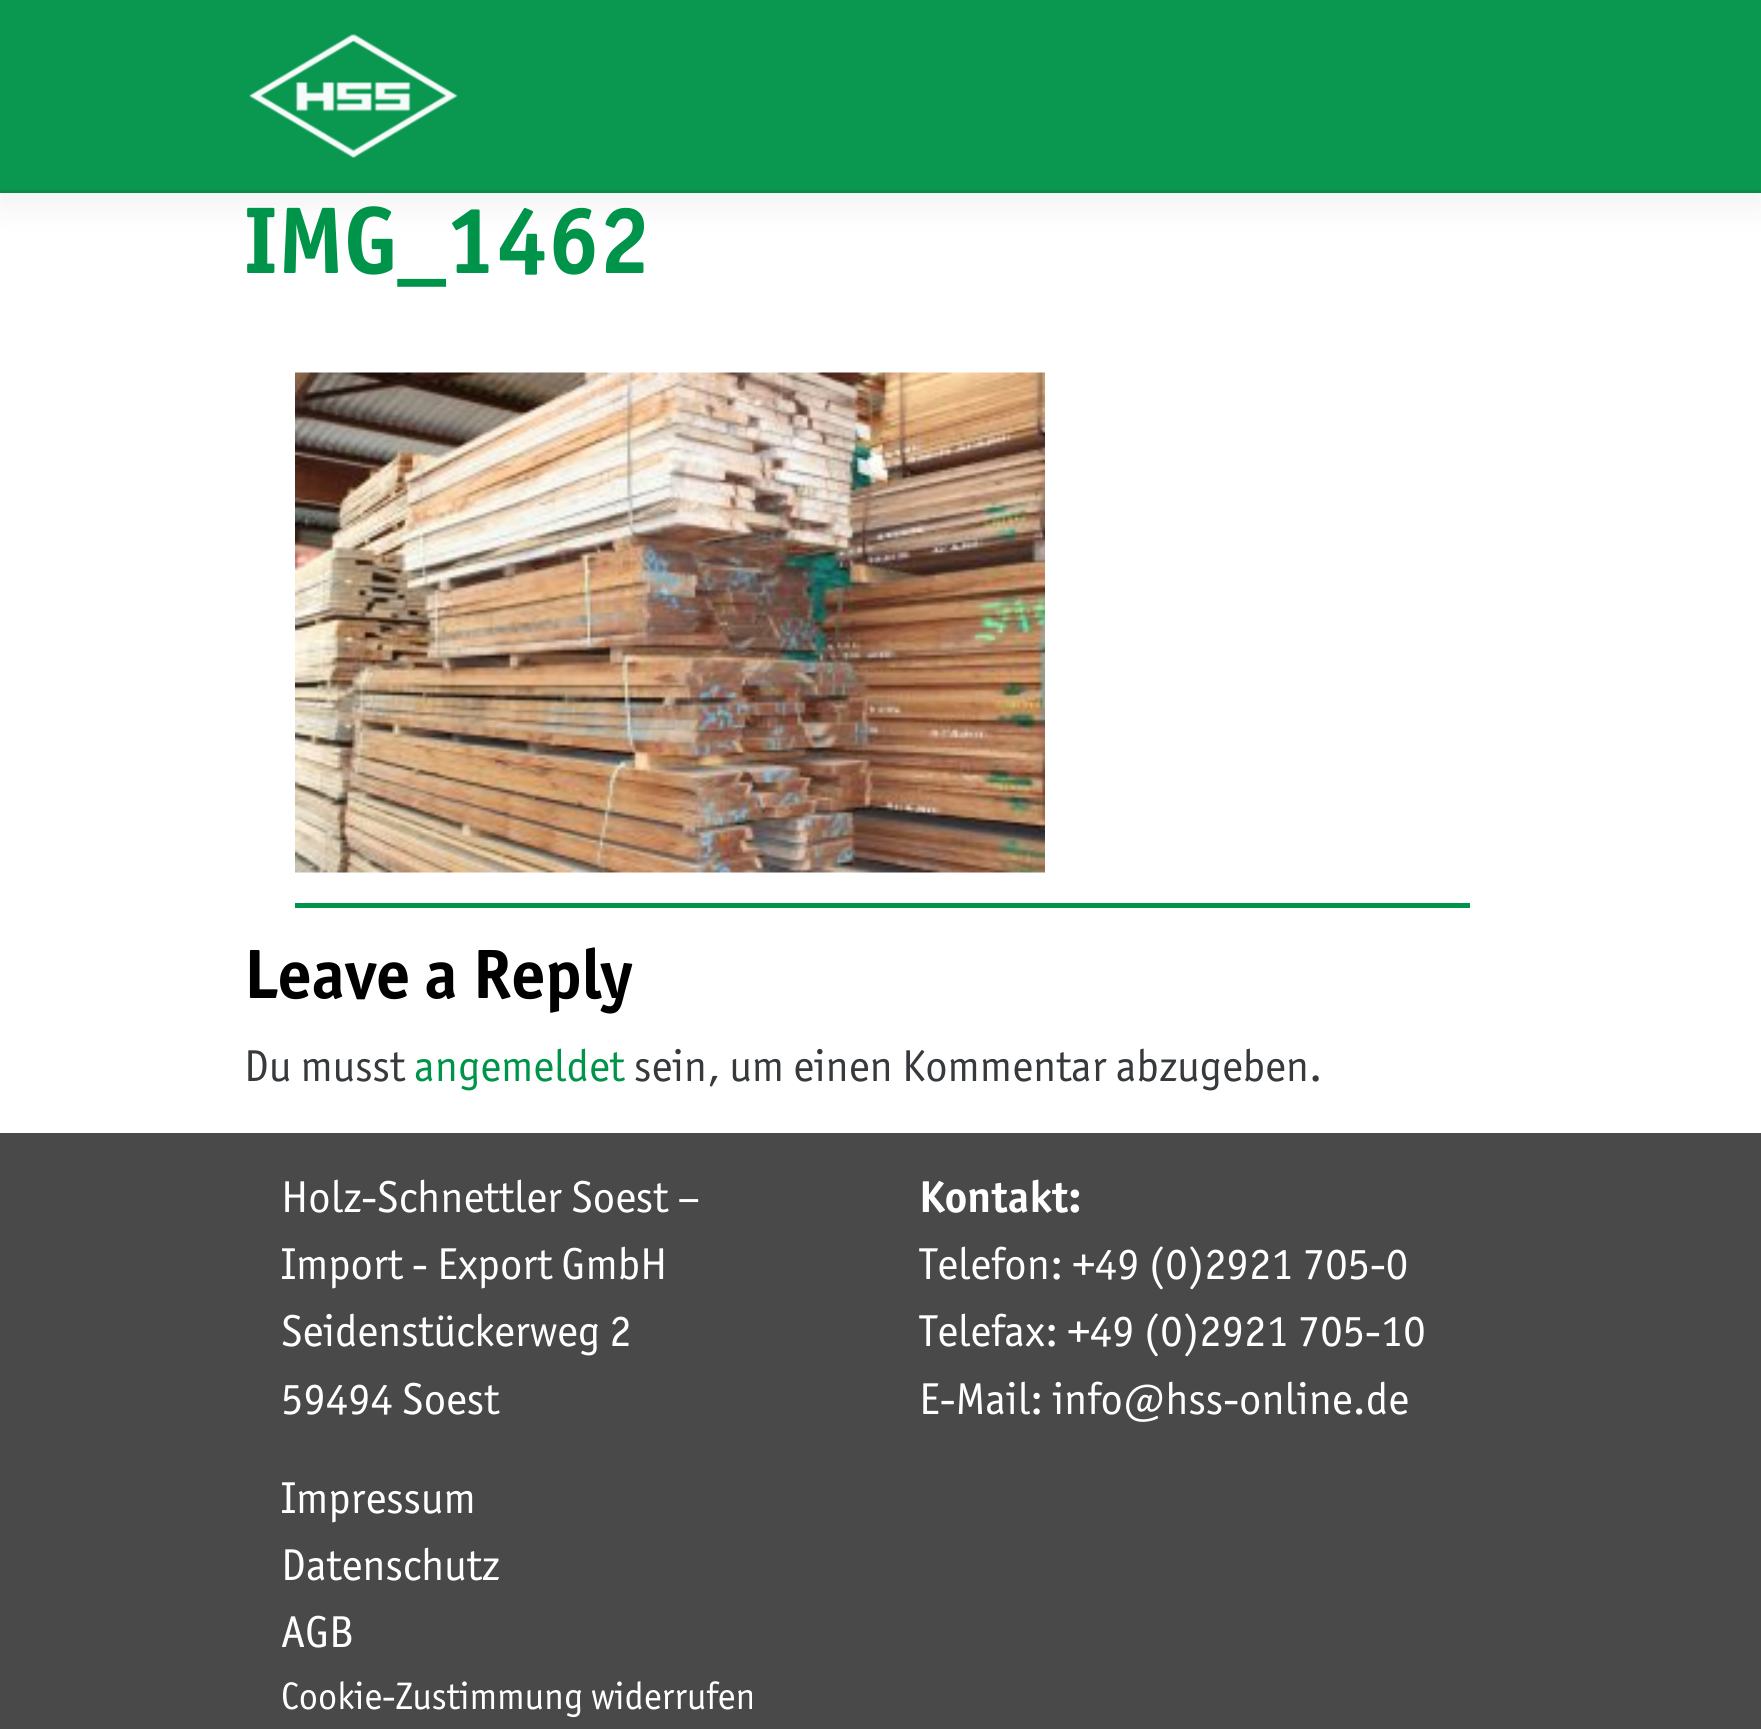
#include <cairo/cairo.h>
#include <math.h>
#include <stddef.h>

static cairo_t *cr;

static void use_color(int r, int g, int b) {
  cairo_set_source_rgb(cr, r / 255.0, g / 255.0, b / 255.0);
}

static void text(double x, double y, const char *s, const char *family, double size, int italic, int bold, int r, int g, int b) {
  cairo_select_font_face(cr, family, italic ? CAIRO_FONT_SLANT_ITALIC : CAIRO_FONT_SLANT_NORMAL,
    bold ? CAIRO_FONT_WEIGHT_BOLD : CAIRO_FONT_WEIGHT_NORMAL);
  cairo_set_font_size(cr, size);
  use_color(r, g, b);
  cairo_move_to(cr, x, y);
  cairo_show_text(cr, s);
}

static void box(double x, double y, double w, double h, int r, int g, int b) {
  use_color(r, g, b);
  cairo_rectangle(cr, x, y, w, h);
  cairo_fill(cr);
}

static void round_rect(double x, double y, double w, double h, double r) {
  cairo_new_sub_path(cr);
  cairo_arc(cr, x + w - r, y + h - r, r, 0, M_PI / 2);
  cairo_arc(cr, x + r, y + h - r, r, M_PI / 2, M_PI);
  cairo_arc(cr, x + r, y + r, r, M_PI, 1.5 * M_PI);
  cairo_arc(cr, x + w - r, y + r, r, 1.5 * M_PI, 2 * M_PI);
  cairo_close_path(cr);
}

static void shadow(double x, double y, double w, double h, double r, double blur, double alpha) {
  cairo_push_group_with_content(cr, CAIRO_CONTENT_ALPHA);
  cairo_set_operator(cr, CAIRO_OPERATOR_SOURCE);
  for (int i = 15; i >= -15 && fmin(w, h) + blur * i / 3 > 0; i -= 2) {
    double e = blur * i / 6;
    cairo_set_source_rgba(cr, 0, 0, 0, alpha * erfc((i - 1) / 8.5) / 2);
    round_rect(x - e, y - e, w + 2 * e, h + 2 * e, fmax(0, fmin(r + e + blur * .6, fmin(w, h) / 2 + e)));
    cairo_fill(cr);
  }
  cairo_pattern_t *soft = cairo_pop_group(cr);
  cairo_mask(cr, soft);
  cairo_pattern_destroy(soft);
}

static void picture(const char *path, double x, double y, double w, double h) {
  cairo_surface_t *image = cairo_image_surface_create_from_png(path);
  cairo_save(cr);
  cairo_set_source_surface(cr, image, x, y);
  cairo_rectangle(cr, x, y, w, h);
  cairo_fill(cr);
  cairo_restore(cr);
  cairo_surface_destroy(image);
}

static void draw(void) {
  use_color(255, 255, 255);
  cairo_paint(cr);
  use_color(0, 0, 0);
  shadow(0, 15, 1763, 193, 0, 16, 0.05);
  box(0, 0, 1761, 190, 10, 152, 81);
  box(0, 190, 1761, 3, 10, 138, 74);
  picture("img_01.png", 249, 34, 209, 124);
  picture("img_02.png", 295, 372, 750, 501);
  box(295, 903, 1175, 5, 0, 148, 74);
  box(0, 1133, 1761, 596, 73, 73, 73);
  text(244, 273, "IMG_1462", "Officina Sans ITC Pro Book", 95, 0, 1, 0, 148, 74);
  text(244, 998, "Leave a Reply", "Officina Sans ITC Pro Book", 70, 0, 1, 0, 0, 0);
  text(244, 1081, "Du musst", "Officina Sans ITC Pro Book", 44.75, 0, 0, 55, 58, 60);
  text(414, 1081, "angemeldet", "Officina Sans ITC Pro Book", 44.75, 0, 0, 0, 148, 74);
  text(634, 1081, "sein, um einen Kommentar abzugeben.", "Officina Sans ITC Pro Book", 44.75, 0, 0, 55, 58, 60);
  text(281, 1212, "Holz-Schnettler Soest –", "Officina Sans ITC Pro Book", 44.75, 0, 0, 255, 255, 255);
  text(281, 1279, "Import - Export GmbH", "Officina Sans ITC Pro Book", 44.75, 0, 0, 255, 255, 255);
  text(281, 1346, "Seidenstückerweg 2", "Officina Sans ITC Pro Book", 44.75, 0, 0, 255, 255, 255);
  text(281, 1414, "59494 Soest", "Officina Sans ITC Pro Book", 44.75, 0, 0, 255, 255, 255);
  text(919, 1212, "Kontakt:", "Officina Sans ITC Pro Book", 44.75, 0, 1, 255, 255, 255);
  text(919, 1279, "Telefon: +49 (0)2921 705-0", "Officina Sans ITC Pro Book", 44.75, 0, 0, 255, 255, 255);
  text(919, 1346, "Telefax: +49 (0)2921 705-10", "Officina Sans ITC Pro Book", 44.75, 0, 0, 255, 255, 255);
  text(919, 1414, "E-Mail: info@hss-online.de", "Officina Sans ITC Pro Book", 44.75, 0, 0, 255, 255, 255);
  text(281, 1513, "Impressum", "Officina Sans ITC Pro Book", 44.75, 0, 0, 255, 255, 255);
  text(281, 1580, "Datenschutz", "Officina Sans ITC Pro Book", 44.75, 0, 0, 255, 255, 255);
  text(281, 1647, "AGB", "Officina Sans ITC Pro Book", 44.75, 0, 0, 255, 255, 255);
  text(281, 1709, "Cookie-Zustimmung widerrufen", "Officina Sans ITC Pro Book", 38.4, 0, 0, 255, 255, 255);
}

int main(void) {
  cairo_surface_t *surface = cairo_image_surface_create(CAIRO_FORMAT_RGB24, 1761, 1729);
  cr = cairo_create(surface);
  cairo_font_options_t *options = cairo_font_options_create();
  cairo_font_options_set_hint_metrics(options, CAIRO_HINT_METRICS_OFF);
  cairo_font_options_set_hint_style(options, CAIRO_HINT_STYLE_NONE);
  cairo_set_font_options(cr, options);
  cairo_set_miter_limit(cr, 4);
  draw();
  cairo_surface_write_to_png(surface, "out.png");
  cairo_font_options_destroy(options);
  cairo_destroy(cr);
  cairo_surface_destroy(surface);
  return 0;
}
